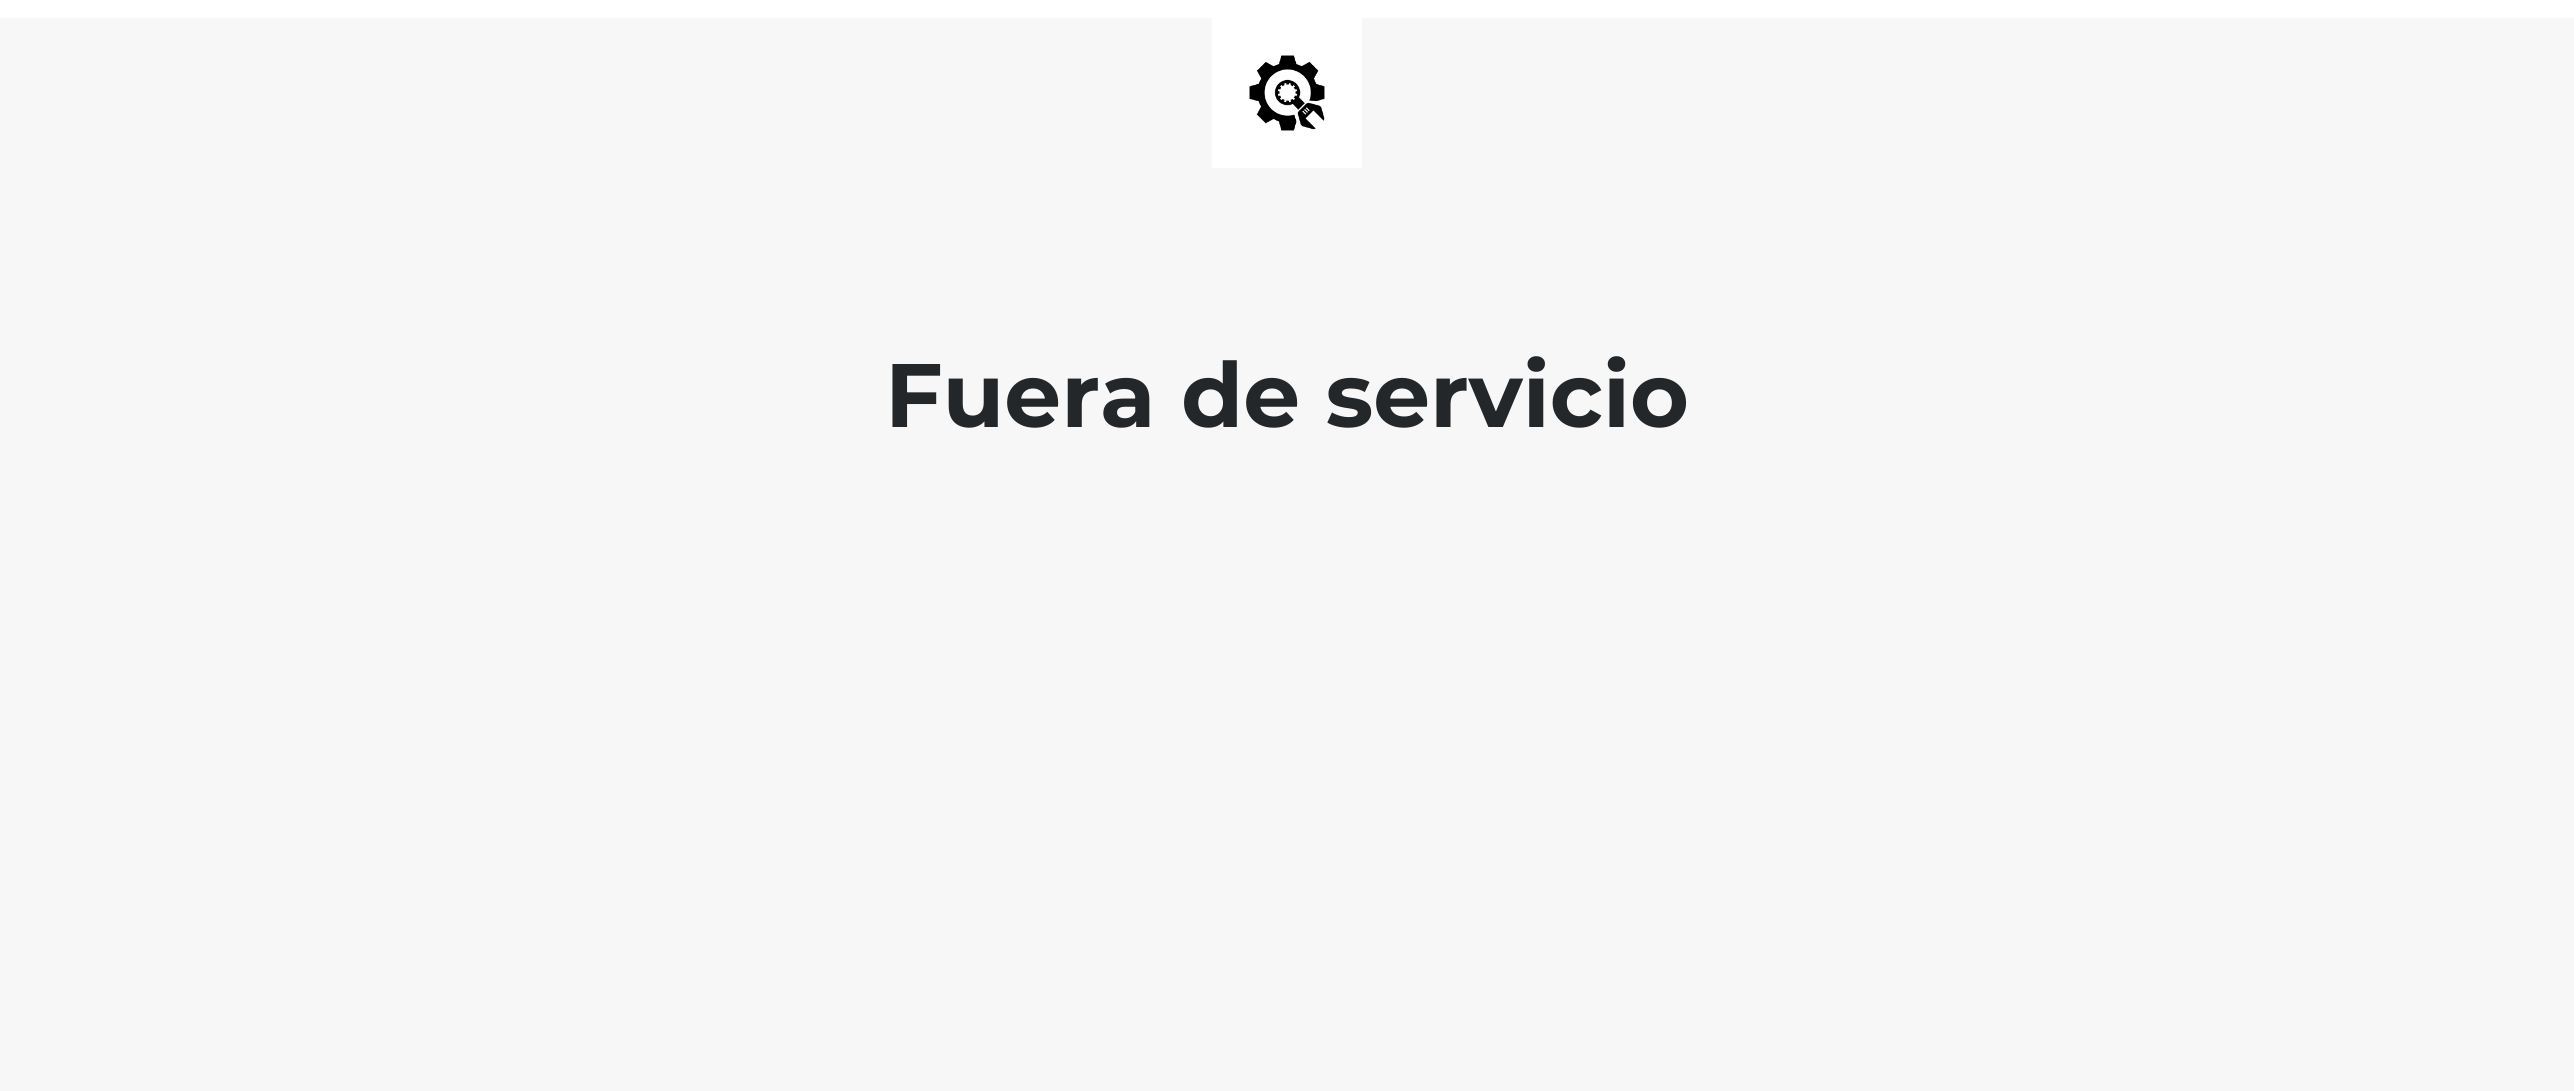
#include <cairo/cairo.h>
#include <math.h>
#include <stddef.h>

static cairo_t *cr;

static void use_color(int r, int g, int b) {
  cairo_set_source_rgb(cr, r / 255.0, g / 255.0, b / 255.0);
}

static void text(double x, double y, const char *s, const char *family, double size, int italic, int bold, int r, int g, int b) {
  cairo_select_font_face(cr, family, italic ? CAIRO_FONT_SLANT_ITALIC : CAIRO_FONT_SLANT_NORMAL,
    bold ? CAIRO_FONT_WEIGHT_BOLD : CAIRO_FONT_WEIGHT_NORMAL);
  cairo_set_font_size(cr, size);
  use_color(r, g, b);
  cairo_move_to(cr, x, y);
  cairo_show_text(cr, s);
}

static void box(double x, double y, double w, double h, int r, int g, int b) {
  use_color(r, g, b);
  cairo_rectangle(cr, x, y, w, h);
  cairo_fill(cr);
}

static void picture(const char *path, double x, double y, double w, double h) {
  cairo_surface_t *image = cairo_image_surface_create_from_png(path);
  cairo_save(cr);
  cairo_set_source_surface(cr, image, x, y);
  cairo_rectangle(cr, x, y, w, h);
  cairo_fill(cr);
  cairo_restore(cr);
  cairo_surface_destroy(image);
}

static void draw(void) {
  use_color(247, 247, 247);
  cairo_paint(cr);
  box(0, 0, 2574, 18, 255, 255, 255);
  box(1212, 18, 150, 150, 255, 255, 255);
  picture("img_01.png", 1249, 55, 76, 76);
  text(885, 427, "Fuera de servicio", "Montserrat Thin", 90, 0, 0, 35, 39, 42);
}

int main(void) {
  cairo_surface_t *surface = cairo_image_surface_create(CAIRO_FORMAT_RGB24, 2574, 1091);
  cr = cairo_create(surface);
  cairo_font_options_t *options = cairo_font_options_create();
  cairo_font_options_set_hint_metrics(options, CAIRO_HINT_METRICS_OFF);
  cairo_font_options_set_hint_style(options, CAIRO_HINT_STYLE_NONE);
  cairo_set_font_options(cr, options);
  cairo_set_miter_limit(cr, 4);
  draw();
  cairo_surface_write_to_png(surface, "out.png");
  cairo_font_options_destroy(options);
  cairo_destroy(cr);
  cairo_surface_destroy(surface);
  return 0;
}
